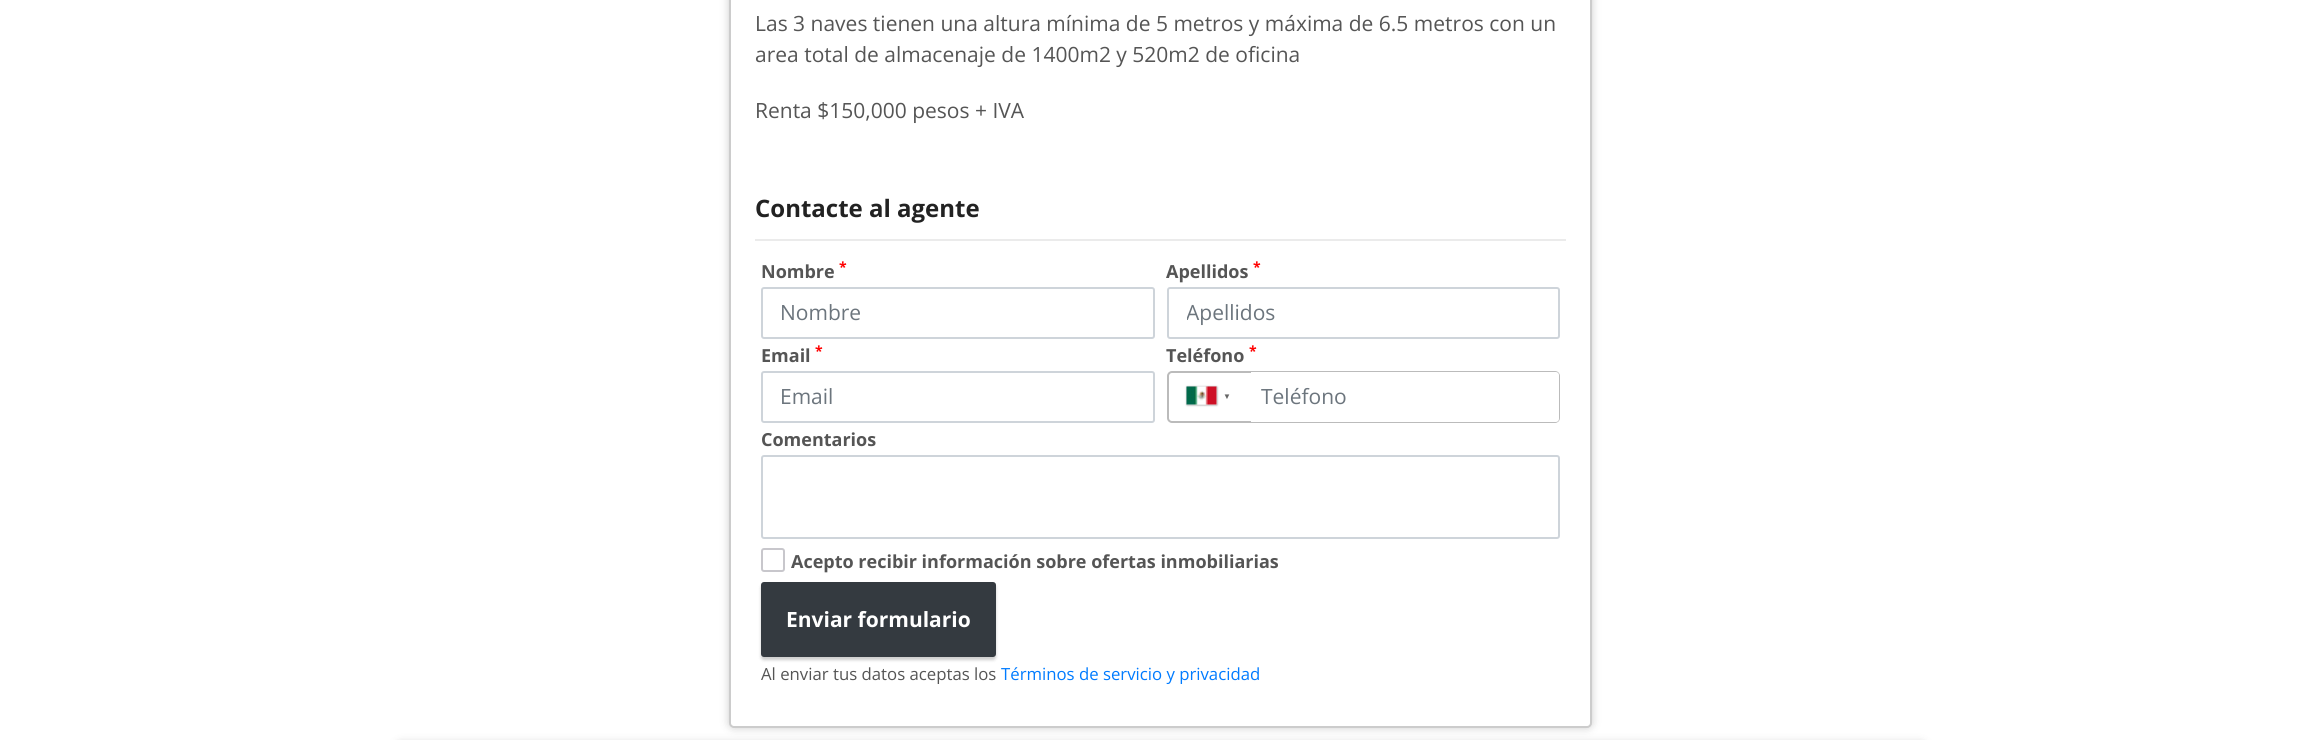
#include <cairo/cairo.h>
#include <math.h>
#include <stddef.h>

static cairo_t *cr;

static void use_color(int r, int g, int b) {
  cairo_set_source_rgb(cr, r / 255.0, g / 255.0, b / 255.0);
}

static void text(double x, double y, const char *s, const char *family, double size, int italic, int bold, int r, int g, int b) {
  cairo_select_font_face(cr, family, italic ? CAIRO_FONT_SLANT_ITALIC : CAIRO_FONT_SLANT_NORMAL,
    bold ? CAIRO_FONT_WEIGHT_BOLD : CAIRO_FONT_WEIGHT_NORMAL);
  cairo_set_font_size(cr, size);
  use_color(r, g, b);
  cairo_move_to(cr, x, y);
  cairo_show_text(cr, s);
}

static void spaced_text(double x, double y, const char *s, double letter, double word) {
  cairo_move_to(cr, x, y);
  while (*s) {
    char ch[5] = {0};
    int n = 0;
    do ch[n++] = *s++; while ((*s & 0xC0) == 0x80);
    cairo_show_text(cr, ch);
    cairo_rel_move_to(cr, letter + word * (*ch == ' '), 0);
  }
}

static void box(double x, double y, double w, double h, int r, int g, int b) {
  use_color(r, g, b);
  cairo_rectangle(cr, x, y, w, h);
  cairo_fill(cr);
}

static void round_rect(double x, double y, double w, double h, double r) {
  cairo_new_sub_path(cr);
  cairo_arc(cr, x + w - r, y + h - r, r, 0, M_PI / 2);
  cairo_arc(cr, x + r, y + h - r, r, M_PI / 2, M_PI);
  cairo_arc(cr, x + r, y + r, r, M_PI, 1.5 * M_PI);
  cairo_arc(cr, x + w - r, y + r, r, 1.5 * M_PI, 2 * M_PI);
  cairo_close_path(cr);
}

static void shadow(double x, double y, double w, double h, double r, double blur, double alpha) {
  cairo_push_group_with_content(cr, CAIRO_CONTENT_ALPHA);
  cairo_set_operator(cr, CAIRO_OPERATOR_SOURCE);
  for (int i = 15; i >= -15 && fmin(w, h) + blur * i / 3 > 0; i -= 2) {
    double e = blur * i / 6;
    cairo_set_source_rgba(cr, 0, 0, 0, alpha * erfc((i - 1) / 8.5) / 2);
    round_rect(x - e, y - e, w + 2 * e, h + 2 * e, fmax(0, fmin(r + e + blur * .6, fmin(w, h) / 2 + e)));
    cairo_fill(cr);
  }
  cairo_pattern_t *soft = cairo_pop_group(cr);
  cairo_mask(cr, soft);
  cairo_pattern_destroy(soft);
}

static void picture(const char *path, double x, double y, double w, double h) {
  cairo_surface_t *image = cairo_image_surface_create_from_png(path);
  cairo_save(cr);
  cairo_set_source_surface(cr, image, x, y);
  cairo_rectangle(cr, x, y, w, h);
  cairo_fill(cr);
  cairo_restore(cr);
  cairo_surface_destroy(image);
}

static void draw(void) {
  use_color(255, 255, 255);
  cairo_paint(cr);
  use_color(0, 0, 0);
  shadow(729, -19, 863, 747, 5, 4.5, 0.2);
  use_color(255, 255, 255);
  round_rect(730, -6, 861, 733, 4);
  cairo_fill_preserve(cr);
  use_color(204, 204, 204);
  cairo_stroke(cr);
  box(755, 239, 811, 2, 235, 235, 235);
  round_rect(762, 288, 392, 50, 2);
  use_color(206, 212, 218);
  cairo_stroke(cr);
  round_rect(1168, 288, 391, 50, 2);
  cairo_stroke(cr);
  round_rect(762, 372, 392, 50, 2);
  cairo_stroke(cr);
  round_rect(1168, 372, 391, 50, 4);
  use_color(187, 187, 187);
  cairo_stroke(cr);
  use_color(136, 136, 136);
  shadow(1187, 387, 30, 18, 0, 1, 1);
  box(1187, 387, 30, 18, 219, 219, 219);
  picture("img_01.png", 1186, 386, 31, 19);
  use_color(255, 255, 255);
  cairo_new_path(cr);
  cairo_move_to(cr, 1251, 372);
  cairo_line_to(cr, 1556, 372);
  cairo_curve_to(cr, 1557.5, 372, 1559, 373.5, 1559, 375);
  cairo_line_to(cr, 1559, 419);
  cairo_curve_to(cr, 1559, 420.5, 1557.5, 422, 1556, 422);
  cairo_line_to(cr, 1251, 422);
  cairo_close_path(cr);
  cairo_fill(cr);
  round_rect(762, 456, 797, 82, 2);
  use_color(206, 212, 218);
  cairo_stroke(cr);
  round_rect(762, 549, 22, 22, 2);
  use_color(200, 199, 204);
  cairo_stroke(cr);
  use_color(0, 0, 0);
  shadow(761, 585, 235, 75, 3, 1.5, 0.2);
  use_color(52, 58, 64);
  round_rect(762, 583, 233, 73, 2);
  cairo_fill_preserve(cr);
  cairo_stroke(cr);
  use_color(0, 0, 0);
  shadow(396, 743, 1530, 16, 5, 4.5, 0.2);
  text(755, 31, "Las 3 naves tienen una altura mínima de 5 metros y máxima de 6.5 metros con un", "Open Sans", 21, 0, 0, 85, 85, 85);
  text(755, 62, "area total de almacenaje de 1400m2 y 520m2 de oficina", "Open Sans", 21, 0, 0, 85, 85, 85);
  text(755, 118, "Renta $150,000 pesos + IVA", "Open Sans", 21, 0, 0, 85, 85, 85);
  text(755, 217, "Contacte al agente", "Open Sans", 24, 0, 1, 34, 34, 34);
  text(761, 278, "Nombre", "Open Sans", 18, 0, 1, 85, 85, 85);
  text(839, 272, "*", "Open Sans", 14, 0, 1, 255, 0, 0);
  text(780, 320, "Nombre", "Open Sans", 21, 0, 0, 108, 117, 125);
  text(1166, 278, "Apellidos", "Open Sans", 18, 0, 1, 85, 85, 85);
  text(1253, 272, "*", "Open Sans", 14, 0, 1, 255, 0, 0);
  cairo_save(cr);
  cairo_rectangle(cr, 1187, 299, 354, 28);
  cairo_clip(cr);
  text(1186, 320, "Apellidos", "Open Sans", 21, 0, 0, 108, 117, 125);
  cairo_restore(cr);
  text(761, 362, "Email", "Open Sans", 18, 0, 1, 85, 85, 85);
  text(815, 356, "*", "Open Sans", 14, 0, 1, 255, 0, 0);
  text(780, 404, "Email", "Open Sans", 21, 0, 0, 108, 117, 125);
  text(1166, 362, "Teléfono", "Open Sans", 18, 0, 1, 85, 85, 85);
  text(1249, 356, "*", "Open Sans", 14, 0, 1, 255, 0, 0);
  cairo_select_font_face(cr, "Liberation Sans", CAIRO_FONT_SLANT_NORMAL, CAIRO_FONT_WEIGHT_NORMAL);
  cairo_set_font_size(cr, 8);
  use_color(102, 102, 102);
  spaced_text(1223, 399, "▼", 8, 0);
  text(1261, 404, "Teléfono", "Open Sans", 21, 0, 0, 108, 117, 125);
  text(761, 446, "Comentarios", "Open Sans", 18, 0, 1, 85, 85, 85);
  text(791, 568, "Acepto recibir información sobre ofertas inmobiliarias", "Open Sans", 18, 0, 1, 85, 85, 85);
  text(786, 627, "Enviar formulario", "Open Sans", 21, 0, 1, 255, 255, 255);
  text(761, 680, "Al enviar tus datos aceptas los", "Open Sans", 16.75, 0, 0, 85, 85, 85);
  text(1001, 680, "Términos de servicio y privacidad", "Open Sans", 16.75, 0, 0, 0, 123, 255);
}

int main(void) {
  cairo_surface_t *surface = cairo_image_surface_create(CAIRO_FORMAT_RGB24, 2320, 740);
  cr = cairo_create(surface);
  cairo_font_options_t *options = cairo_font_options_create();
  cairo_font_options_set_hint_metrics(options, CAIRO_HINT_METRICS_OFF);
  cairo_font_options_set_hint_style(options, CAIRO_HINT_STYLE_NONE);
  cairo_set_font_options(cr, options);
  cairo_set_miter_limit(cr, 4);
  draw();
  cairo_surface_write_to_png(surface, "out.png");
  cairo_font_options_destroy(options);
  cairo_destroy(cr);
  cairo_surface_destroy(surface);
  return 0;
}
